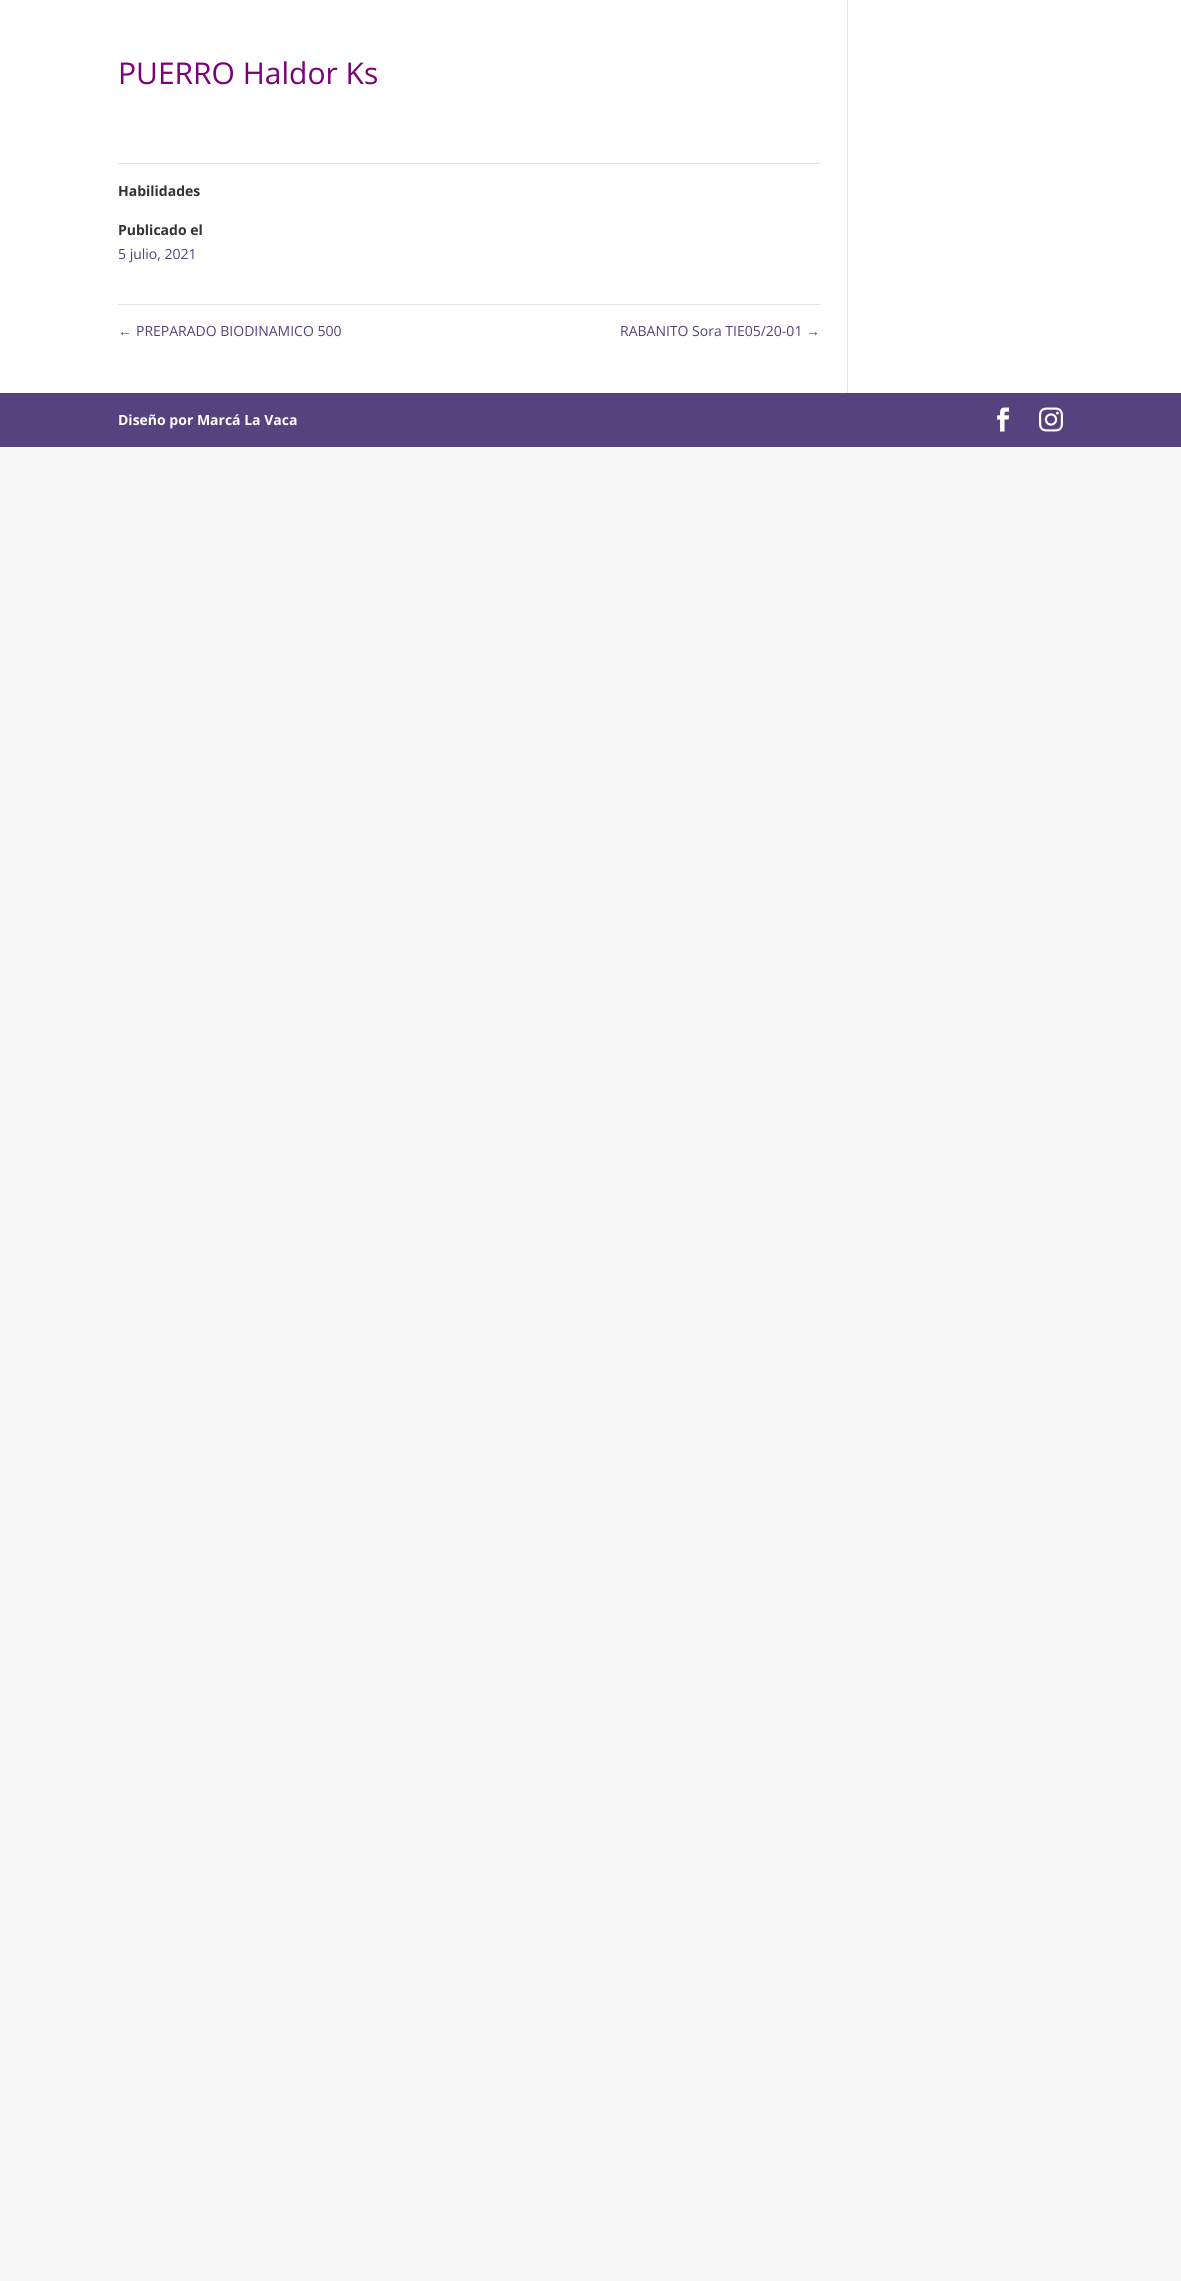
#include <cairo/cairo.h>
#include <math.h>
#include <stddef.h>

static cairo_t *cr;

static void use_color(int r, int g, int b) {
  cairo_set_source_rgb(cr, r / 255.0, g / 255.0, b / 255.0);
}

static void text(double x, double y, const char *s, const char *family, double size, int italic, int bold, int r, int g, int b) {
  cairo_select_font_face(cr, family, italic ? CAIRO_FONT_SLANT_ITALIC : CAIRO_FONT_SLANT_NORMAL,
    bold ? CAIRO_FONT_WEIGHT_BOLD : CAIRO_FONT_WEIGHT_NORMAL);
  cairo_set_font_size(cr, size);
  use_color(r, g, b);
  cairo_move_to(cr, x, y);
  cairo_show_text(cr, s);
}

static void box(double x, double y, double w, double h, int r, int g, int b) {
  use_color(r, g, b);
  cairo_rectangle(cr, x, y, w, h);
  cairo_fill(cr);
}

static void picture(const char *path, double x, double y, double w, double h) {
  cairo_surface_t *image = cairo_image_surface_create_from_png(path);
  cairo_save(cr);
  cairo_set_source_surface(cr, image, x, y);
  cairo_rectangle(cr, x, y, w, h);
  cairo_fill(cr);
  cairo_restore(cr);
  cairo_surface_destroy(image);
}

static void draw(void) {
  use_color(246, 246, 246);
  cairo_paint(cr);
  box(0, 0, 1181, 393, 255, 255, 255);
  box(118, 163, 702, 1, 226, 226, 226);
  box(118, 304, 702, 1, 226, 226, 226);
  box(847, 0, 1, 393, 226, 226, 226);
  box(0, 393, 1181, 54, 85, 66, 126);
  picture("img_01.png", 997, 407, 13, 25);
  picture("img_02.png", 1039, 407, 24, 25);
  text(118, 84, "PUERRO Haldor Ks", "Open Sans", 30, 0, 0, 124, 0, 120);
  text(118, 196, "Habilidades", "Open Sans", 14, 0, 1, 51, 51, 51);
  text(118, 235, "Publicado el", "Open Sans", 14, 0, 1, 51, 51, 51);
  text(118, 259, "5 julio, 2021", "Open Sans", 14, 0, 0, 85, 66, 126);
  text(118, 336, "←", "Liberation Sans", 14, 0, 0, 85, 66, 126);
  text(136, 336, "PREPARADO BIODINAMICO 500", "Open Sans", 14, 0, 0, 85, 66, 126);
  text(620, 336, "RABANITO Sora TIE05/20-01", "Open Sans", 14, 0, 0, 85, 66, 126);
  text(806, 336, "→", "Liberation Sans", 14, 0, 0, 85, 66, 126);
  text(118, 425, "Diseño por Marcá La Vaca", "Open Sans", 14, 0, 1, 255, 255, 255);
}

int main(void) {
  cairo_surface_t *surface = cairo_image_surface_create(CAIRO_FORMAT_RGB24, 1181, 2281);
  cr = cairo_create(surface);
  cairo_font_options_t *options = cairo_font_options_create();
  cairo_font_options_set_hint_metrics(options, CAIRO_HINT_METRICS_OFF);
  cairo_font_options_set_hint_style(options, CAIRO_HINT_STYLE_NONE);
  cairo_set_font_options(cr, options);
  cairo_set_miter_limit(cr, 4);
  draw();
  cairo_surface_write_to_png(surface, "out.png");
  cairo_font_options_destroy(options);
  cairo_destroy(cr);
  cairo_surface_destroy(surface);
  return 0;
}
